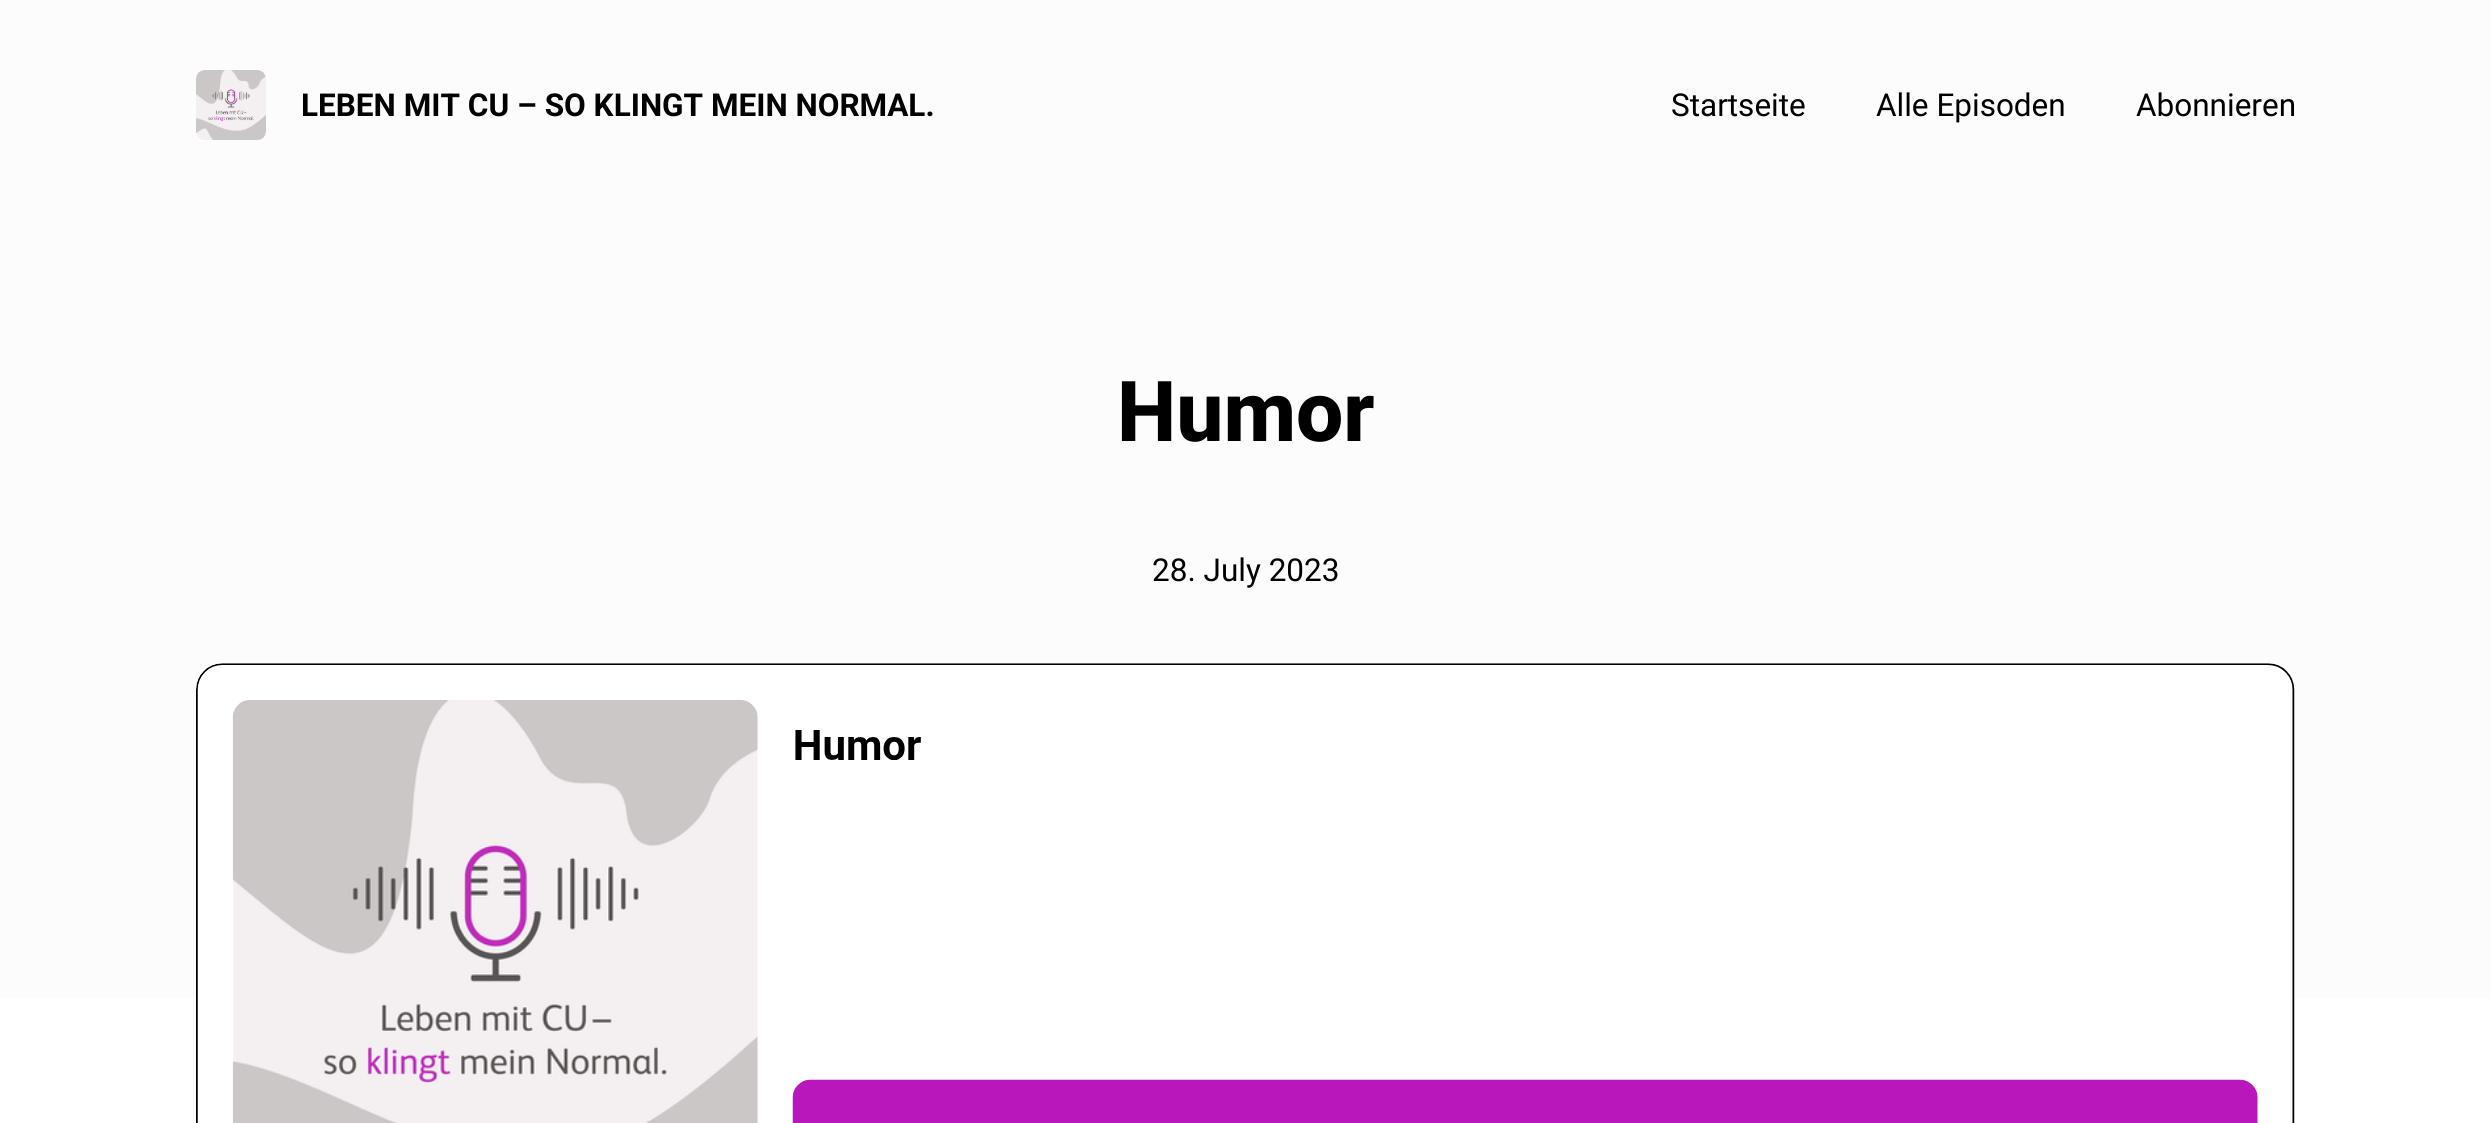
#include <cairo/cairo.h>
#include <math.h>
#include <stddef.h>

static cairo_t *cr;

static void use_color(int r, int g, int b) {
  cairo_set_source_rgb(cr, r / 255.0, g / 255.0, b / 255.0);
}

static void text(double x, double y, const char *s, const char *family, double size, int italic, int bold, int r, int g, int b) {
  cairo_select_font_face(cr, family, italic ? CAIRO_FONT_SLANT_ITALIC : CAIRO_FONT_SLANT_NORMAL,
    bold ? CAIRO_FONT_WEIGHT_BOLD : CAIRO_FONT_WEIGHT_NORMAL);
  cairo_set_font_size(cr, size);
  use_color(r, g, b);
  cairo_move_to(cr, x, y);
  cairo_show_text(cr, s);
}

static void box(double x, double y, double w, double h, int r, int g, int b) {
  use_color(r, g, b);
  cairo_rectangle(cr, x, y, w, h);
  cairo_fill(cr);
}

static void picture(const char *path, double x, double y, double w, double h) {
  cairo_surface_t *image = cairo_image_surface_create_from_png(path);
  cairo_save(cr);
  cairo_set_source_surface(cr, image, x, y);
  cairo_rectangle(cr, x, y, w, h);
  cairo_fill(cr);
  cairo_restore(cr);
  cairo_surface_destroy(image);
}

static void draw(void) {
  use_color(255, 255, 255);
  cairo_paint(cr);
  box(0, 0, 2491, 663, 253, 252, 252);
  picture("img_01.png", 196, 70, 70, 70);
  box(0, 663, 2491, 335, 253, 252, 252);
  picture("img_02.png", 196, 663, 2099, 460);
  text(301, 116, "LEBEN MIT CU – SO KLINGT MEIN NORMAL.", "Roboto", 31.5, 0, 1, 0, 0, 0);
  text(1671, 116, "Startseite", "Roboto", 31.5, 0, 0, 0, 0, 0);
  text(1876, 116, "Alle Episoden", "Roboto", 31.5, 0, 0, 0, 0, 0);
  text(2136, 116, "Abonnieren", "Roboto", 31.5, 0, 0, 0, 0, 0);
  text(1117, 441, "Humor", "Roboto ExtraBold", 84, 0, 0, 0, 0, 0);
  text(1152, 581, "28. July 2023", "Roboto", 31.5, 0, 0, 0, 0, 0);
}

int main(void) {
  cairo_surface_t *surface = cairo_image_surface_create(CAIRO_FORMAT_RGB24, 2491, 1123);
  cr = cairo_create(surface);
  cairo_font_options_t *options = cairo_font_options_create();
  cairo_font_options_set_hint_metrics(options, CAIRO_HINT_METRICS_OFF);
  cairo_font_options_set_hint_style(options, CAIRO_HINT_STYLE_NONE);
  cairo_set_font_options(cr, options);
  cairo_set_miter_limit(cr, 4);
  draw();
  cairo_surface_write_to_png(surface, "out.png");
  cairo_font_options_destroy(options);
  cairo_destroy(cr);
  cairo_surface_destroy(surface);
  return 0;
}
